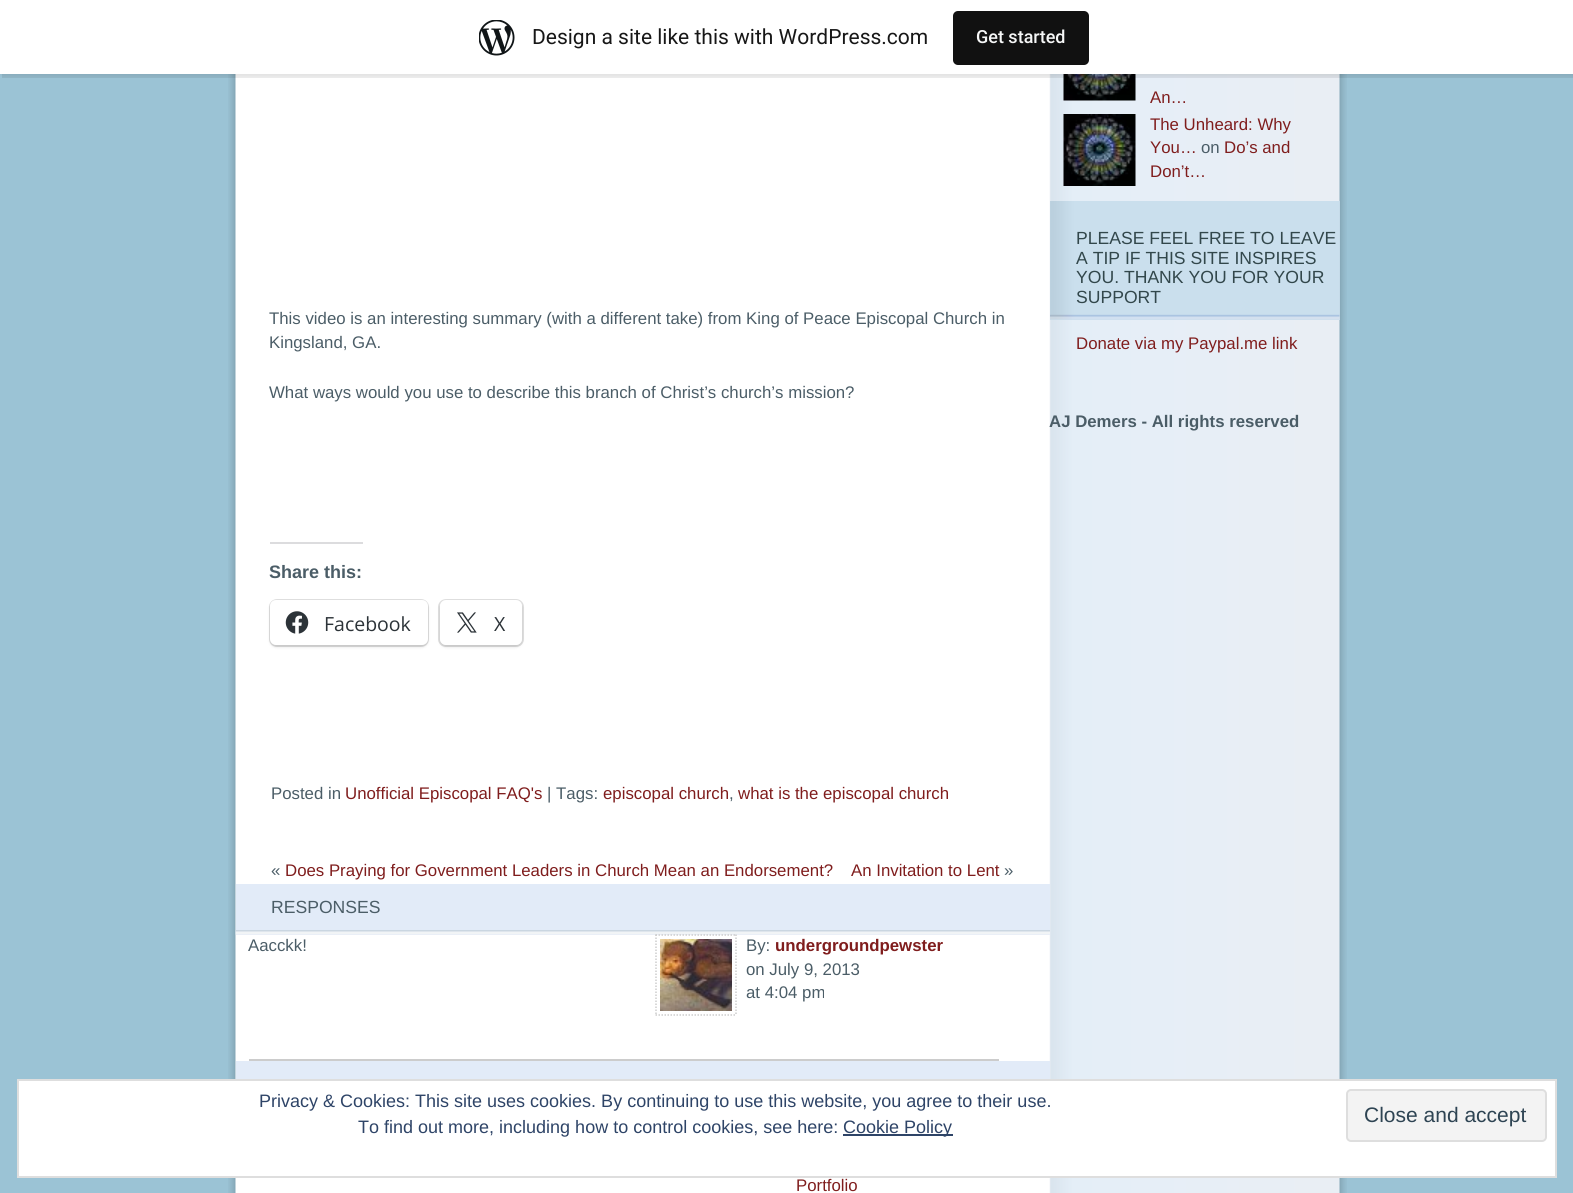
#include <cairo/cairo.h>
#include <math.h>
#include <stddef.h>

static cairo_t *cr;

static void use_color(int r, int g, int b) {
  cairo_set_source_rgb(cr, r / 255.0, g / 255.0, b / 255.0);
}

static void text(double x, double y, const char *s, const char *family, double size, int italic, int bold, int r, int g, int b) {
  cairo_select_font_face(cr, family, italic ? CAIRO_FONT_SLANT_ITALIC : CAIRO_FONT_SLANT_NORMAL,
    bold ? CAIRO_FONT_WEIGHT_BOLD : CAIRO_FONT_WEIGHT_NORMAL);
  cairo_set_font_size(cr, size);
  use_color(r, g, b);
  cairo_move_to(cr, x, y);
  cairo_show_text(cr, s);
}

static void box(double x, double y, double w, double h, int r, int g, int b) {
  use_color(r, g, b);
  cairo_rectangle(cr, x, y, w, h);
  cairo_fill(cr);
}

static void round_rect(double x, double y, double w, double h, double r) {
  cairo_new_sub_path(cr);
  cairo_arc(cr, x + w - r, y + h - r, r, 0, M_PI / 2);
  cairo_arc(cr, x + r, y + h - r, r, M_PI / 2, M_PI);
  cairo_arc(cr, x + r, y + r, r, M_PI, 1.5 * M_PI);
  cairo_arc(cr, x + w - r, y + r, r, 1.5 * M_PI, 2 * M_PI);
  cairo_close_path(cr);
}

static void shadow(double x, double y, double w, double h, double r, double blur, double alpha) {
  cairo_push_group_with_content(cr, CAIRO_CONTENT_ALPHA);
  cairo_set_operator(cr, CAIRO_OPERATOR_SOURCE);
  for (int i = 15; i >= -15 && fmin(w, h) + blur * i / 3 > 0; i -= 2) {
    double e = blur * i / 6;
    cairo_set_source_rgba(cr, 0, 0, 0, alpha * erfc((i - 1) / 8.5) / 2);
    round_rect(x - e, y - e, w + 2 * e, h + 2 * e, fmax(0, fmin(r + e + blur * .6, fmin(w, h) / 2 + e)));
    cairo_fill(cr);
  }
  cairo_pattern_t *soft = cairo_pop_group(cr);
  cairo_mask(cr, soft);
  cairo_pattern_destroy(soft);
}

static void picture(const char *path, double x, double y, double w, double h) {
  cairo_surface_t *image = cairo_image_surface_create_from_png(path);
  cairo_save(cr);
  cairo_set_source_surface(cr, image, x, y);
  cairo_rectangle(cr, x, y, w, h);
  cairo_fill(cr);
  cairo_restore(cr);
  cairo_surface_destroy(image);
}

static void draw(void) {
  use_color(155, 195, 213);
  cairo_paint(cr);
  picture("img_02.png", 228, 74, 1119, 1119);
  picture("img_03.png", 1063, 74, 73, 27);
  use_color(0, 0, 0);
  shadow(0, 2, 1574, 73, 0, 1.5, 0.05);
  cairo_set_source_rgba(cr, 0, 0, 0, 0.08);
  cairo_new_path(cr);
  cairo_move_to(cr, 2, 74);
  cairo_line_to(cr, 2, 78);
  cairo_line_to(cr, 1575, 78);
  cairo_line_to(cr, 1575, 5);
  cairo_line_to(cr, 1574, 5);
  cairo_line_to(cr, 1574, 74);
  cairo_close_path(cr);
  cairo_fill(cr);
  box(0, 0, 1573, 74, 255, 255, 255);
  picture("img_01.png", 479, 20, 36, 36);
  use_color(17, 17, 17);
  round_rect(953, 11, 136, 54, 5);
  cairo_fill(cr);
  picture("img_04.png", 1063, 114, 73, 72);
  box(1050, 201, 290, 119, 202, 223, 237);
  picture("img_05.png", 1050, 201, 290, 119);
  box(270, 542, 93, 2, 220, 220, 222);
  round_rect(270, 600, 158, 46, 7);
  use_color(224, 224, 224);
  cairo_stroke(cr);
  use_color(0, 0, 0);
  shadow(270, 602, 158, 45, 6, 1.5, 0.12);
  use_color(255, 255, 255);
  round_rect(270, 600, 158, 45, 6);
  cairo_fill(cr);
  picture("img_06.png", 285, 611, 24, 23);
  round_rect(439, 600, 84, 46, 7);
  use_color(224, 224, 224);
  cairo_stroke(cr);
  use_color(0, 0, 0);
  shadow(440, 602, 82, 45, 6, 1.5, 0.12);
  use_color(255, 255, 255);
  round_rect(440, 600, 82, 45, 6);
  cairo_fill(cr);
  picture("img_07.png", 457, 612, 20, 21);
  box(236, 884, 814, 51, 226, 235, 248);
  picture("img_08.png", 235, 930, 815, 5);
  box(249, 1059, 750, 2, 204, 204, 204);
  cairo_new_path(cr);
  cairo_move_to(cr, 655.5, 935);
  cairo_line_to(cr, 736.5, 935);
  cairo_set_line_width(cr, 1.5);
  cairo_set_dash(cr, (double[]){1.5, 1.5}, 2, 0);
  cairo_stroke(cr);
  cairo_new_path(cr);
  cairo_move_to(cr, 736, 934.5);
  cairo_line_to(cr, 736, 1015.5);
  cairo_stroke(cr);
  cairo_new_path(cr);
  cairo_move_to(cr, 655.5, 1015);
  cairo_line_to(cr, 736.5, 1015);
  cairo_stroke(cr);
  cairo_new_path(cr);
  cairo_move_to(cr, 656, 934.5);
  cairo_line_to(cr, 656, 1015.5);
  cairo_stroke(cr);
  picture("img_09.png", 660, 939, 72, 72);
  box(236, 1061, 814, 18, 226, 235, 248);
  use_color(255, 255, 255);
  cairo_rectangle(cr, 18, 1080, 1538, 97);
  cairo_fill_preserve(cr);
  use_color(222, 222, 222);
  cairo_set_line_width(cr, 2);
  cairo_set_dash(cr, NULL, 0, 0);
  cairo_stroke(cr);
  box(843, 1134, 110, 2, 46, 68, 103);
  use_color(243, 243, 243);
  round_rect(1347, 1090, 199, 51, 4);
  cairo_fill_preserve(cr);
  use_color(222, 222, 222);
  cairo_stroke(cr);
  text(532, 44, "Design a site like this with WordPress.com", "Roboto", 21, 0, 0, 23, 23, 23);
  text(976, 43, "Get started", "Roboto Medium", 18, 0, 0, 246, 247, 247);
  text(1150, 103, "An…", "Liberation Sans", 16.8, 0, 0, 127, 29, 29);
  text(1150, 130, "The Unheard: Why", "Liberation Sans", 16.8, 0, 0, 127, 29, 29);
  text(1150, 153, "You…", "Liberation Sans", 16.8, 0, 0, 127, 29, 29);
  text(1201, 153, "on", "Liberation Sans", 16.8, 0, 0, 75, 93, 103);
  text(1224, 153, "Do’s and", "Liberation Sans", 16.8, 0, 0, 127, 29, 29);
  text(1150, 177, "Don’t…", "Liberation Sans", 16.8, 0, 0, 127, 29, 29);
  text(1076, 244, "PLEASE FEEL FREE TO LEAVE", "Liberation Sans", 17.6, 0, 0, 50, 71, 75);
  text(1076, 264, "A TIP IF THIS SITE INSPIRES", "Liberation Sans", 17.6, 0, 0, 50, 71, 75);
  text(1076, 283, "YOU. THANK YOU FOR YOUR", "Liberation Sans", 17.6, 0, 0, 50, 71, 75);
  text(1076, 303, "SUPPORT", "Liberation Sans", 17.6, 0, 0, 50, 71, 75);
  text(1076, 349, "Donate via my Paypal.me link", "Liberation Sans", 16.8, 0, 0, 127, 29, 29);
  text(1049, 427, "AJ Demers - All rights reserved", "Liberation Sans", 16.8, 0, 1, 75, 93, 103);
  text(269, 324, "This video is an interesting summary (with a different take) from King of Peace Episcopal Church in", "Liberation Sans", 16.8, 0, 0, 75, 93, 103);
  text(269, 348, "Kingsland, GA.", "Liberation Sans", 16.8, 0, 0, 75, 93, 103);
  text(269, 398, "What ways would you use to describe this branch of Christ’s church’s mission?", "Liberation Sans", 16.8, 0, 0, 75, 93, 103);
  text(269, 578, "Share this:", "Liberation Sans", 18, 0, 1, 75, 93, 103);
  text(324, 631, "Facebook", "Open Sans", 19.5, 0, 0, 44, 51, 56);
  text(494, 631, "X", "Open Sans", 19.5, 0, 0, 44, 51, 56);
  text(271, 799, "Posted in", "Liberation Sans", 16.8, 0, 0, 75, 93, 103);
  text(345, 799, "Unofficial Episcopal FAQ's", "Liberation Sans", 16.8, 0, 0, 127, 29, 29);
  text(547, 799, "| Tags:", "Liberation Sans", 16.8, 0, 0, 75, 93, 103);
  text(603, 799, "episcopal church", "Liberation Sans", 16.8, 0, 0, 127, 29, 29);
  text(729, 799, ",", "Liberation Sans", 16.8, 0, 0, 75, 93, 103);
  text(738, 799, "what is the episcopal church", "Liberation Sans", 16.8, 0, 0, 127, 29, 29);
  text(271, 876, "«", "Liberation Sans", 16.8, 0, 0, 75, 93, 103);
  text(285, 876, "Does Praying for Government Leaders in Church Mean an Endorsement?", "Liberation Sans", 16.8, 0, 0, 127, 29, 29);
  text(851, 876, "An Invitation to Lent", "Liberation Sans", 16.8, 0, 0, 127, 29, 29);
  text(1004, 876, "»", "Liberation Sans", 16.8, 0, 0, 75, 93, 103);
  text(271, 913, "RESPONSES", "Liberation Sans", 17.6, 0, 0, 75, 93, 103);
  text(248, 951, "Aacckk!", "Liberation Sans", 16.8, 0, 0, 75, 93, 103);
  text(746, 951, "By:", "Liberation Sans", 16.8, 0, 0, 75, 93, 103);
  text(775, 951, "undergroundpewster", "Liberation Sans", 16.8, 0, 1, 127, 29, 29);
  text(746, 975, "on July 9, 2013", "Liberation Sans", 16.8, 0, 0, 75, 93, 103);
  text(746, 998, "at 4:04 pm", "Liberation Sans", 16.8, 0, 0, 75, 93, 103);
  text(796, 1191, "Portfolio", "Liberation Sans", 16.8, 0, 0, 127, 29, 29);
  text(259, 1107, "Privacy & Cookies: This site uses cookies. By continuing to use this website, you agree to their use.", "Liberation Sans", 18, 0, 0, 46, 68, 103);
  text(358, 1133, "To find out more, including how to control cookies, see here:", "Liberation Sans", 18, 0, 0, 46, 68, 103);
  text(843, 1133, "Cookie Policy", "Liberation Sans", 18, 0, 0, 46, 68, 103);
  text(1364, 1122, "Close and accept", "Liberation Sans", 21, 0, 0, 46, 68, 83);
}

int main(void) {
  cairo_surface_t *surface = cairo_image_surface_create(CAIRO_FORMAT_RGB24, 1573, 1193);
  cr = cairo_create(surface);
  cairo_font_options_t *options = cairo_font_options_create();
  cairo_font_options_set_hint_metrics(options, CAIRO_HINT_METRICS_OFF);
  cairo_font_options_set_hint_style(options, CAIRO_HINT_STYLE_NONE);
  cairo_set_font_options(cr, options);
  cairo_set_miter_limit(cr, 4);
  draw();
  cairo_surface_write_to_png(surface, "out.png");
  cairo_font_options_destroy(options);
  cairo_destroy(cr);
  cairo_surface_destroy(surface);
  return 0;
}
